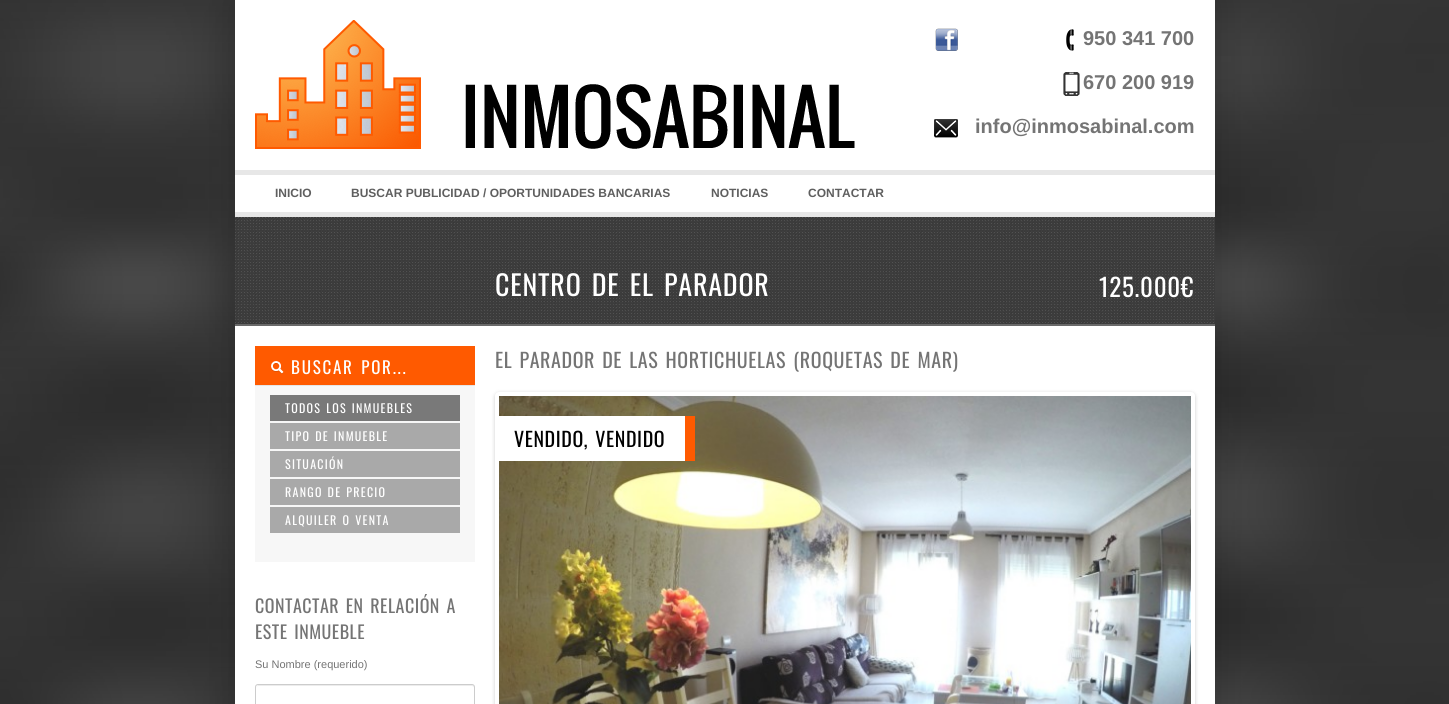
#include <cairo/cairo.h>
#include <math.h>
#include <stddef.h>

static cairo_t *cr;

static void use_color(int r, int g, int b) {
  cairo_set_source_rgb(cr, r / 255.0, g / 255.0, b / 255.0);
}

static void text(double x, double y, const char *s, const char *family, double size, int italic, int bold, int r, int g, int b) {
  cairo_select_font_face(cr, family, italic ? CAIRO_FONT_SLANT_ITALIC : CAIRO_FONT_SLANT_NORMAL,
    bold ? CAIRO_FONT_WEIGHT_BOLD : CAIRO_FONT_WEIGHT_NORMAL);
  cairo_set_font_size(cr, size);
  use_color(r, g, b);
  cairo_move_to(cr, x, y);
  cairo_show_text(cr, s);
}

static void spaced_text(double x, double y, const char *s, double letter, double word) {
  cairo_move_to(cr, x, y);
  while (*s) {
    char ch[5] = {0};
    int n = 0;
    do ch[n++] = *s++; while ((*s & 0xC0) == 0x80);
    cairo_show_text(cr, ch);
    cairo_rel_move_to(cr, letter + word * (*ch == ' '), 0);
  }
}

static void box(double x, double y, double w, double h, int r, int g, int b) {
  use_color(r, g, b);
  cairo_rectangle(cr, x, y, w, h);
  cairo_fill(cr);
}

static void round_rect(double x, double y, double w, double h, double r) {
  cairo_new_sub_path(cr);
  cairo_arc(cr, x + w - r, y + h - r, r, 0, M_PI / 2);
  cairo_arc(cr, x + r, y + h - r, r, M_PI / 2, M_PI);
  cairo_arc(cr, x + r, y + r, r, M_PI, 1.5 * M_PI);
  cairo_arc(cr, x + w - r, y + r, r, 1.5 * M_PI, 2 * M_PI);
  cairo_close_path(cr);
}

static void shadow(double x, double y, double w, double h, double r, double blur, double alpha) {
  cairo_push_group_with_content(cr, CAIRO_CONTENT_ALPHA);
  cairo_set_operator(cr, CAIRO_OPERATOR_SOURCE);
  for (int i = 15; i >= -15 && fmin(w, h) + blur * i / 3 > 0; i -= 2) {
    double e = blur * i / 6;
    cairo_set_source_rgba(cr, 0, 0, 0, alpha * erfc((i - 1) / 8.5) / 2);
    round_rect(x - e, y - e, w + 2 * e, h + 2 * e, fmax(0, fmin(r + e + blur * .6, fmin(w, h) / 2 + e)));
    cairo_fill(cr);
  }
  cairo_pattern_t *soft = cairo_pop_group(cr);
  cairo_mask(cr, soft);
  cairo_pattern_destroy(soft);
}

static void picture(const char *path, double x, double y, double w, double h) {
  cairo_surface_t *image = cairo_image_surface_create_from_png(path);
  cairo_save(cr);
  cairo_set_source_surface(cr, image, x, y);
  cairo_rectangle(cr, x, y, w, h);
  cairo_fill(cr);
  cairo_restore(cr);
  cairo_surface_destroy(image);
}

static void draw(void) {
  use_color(255, 255, 255);
  cairo_paint(cr);
  picture("img_01.png", 0, 0, 1449, 704);
  use_color(0, 0, 0);
  shadow(245, 0, 960, 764, 0, 20, 0.3);
  box(235, 0, 980, 170, 255, 255, 255);
  picture("img_02.png", 255, 20, 600, 129);
  picture("img_03.png", 935, 28, 23, 23);
  picture("img_04.png", 1066, 29, 8, 22);
  picture("img_05.png", 1063, 72, 17, 24);
  picture("img_06.png", 934, 119, 24, 19);
  box(235, 175, 980, 37, 255, 255, 255);
  box(235, 170, 980, 5, 231, 231, 231);
  box(235, 212, 980, 5, 231, 231, 231);
  picture("img_07.png", 235, 217, 980, 107);
  box(235, 324, 980, 2, 105, 105, 105);
  box(235, 326, 980, 378, 255, 255, 255);
  box(255, 346, 220, 39, 255, 90, 0);
  picture("img_08.png", 271, 361, 13, 13);
  box(255, 386, 220, 176, 247, 247, 247);
  box(255, 385, 220, 1, 229, 229, 229);
  box(270, 395, 190, 26, 121, 121, 121);
  box(270, 423, 190, 26, 169, 169, 169);
  box(270, 451, 190, 26, 169, 169, 169);
  box(270, 479, 190, 26, 169, 169, 169);
  box(270, 507, 190, 26, 169, 169, 169);
  use_color(236, 236, 236);
  cairo_new_path(cr);
  cairo_move_to(cr, 258, 686);
  cairo_line_to(cr, 472, 686);
  cairo_curve_to(cr, 473, 686, 474, 687, 474, 688);
  cairo_curve_to(cr, 474, 687, 474, 685, 472, 685);
  cairo_line_to(cr, 258, 685);
  cairo_line_to(cr, 257, 686);
  cairo_line_to(cr, 256, 688);
  cairo_curve_to(cr, 256, 687, 257, 686, 258, 686);
  cairo_close_path(cr);
  cairo_fill(cr);
  round_rect(255.5, 684.5, 219, 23, 2.5);
  use_color(204, 204, 204);
  cairo_set_line_width(cr, 1);
  cairo_stroke(cr);
  use_color(0, 0, 0);
  shadow(495, 393, 700, 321, 4, 2, 0.2);
  use_color(255, 255, 255);
  round_rect(495, 392, 700, 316, 4);
  cairo_fill(cr);
  picture("img_09.png", 499, 396, 692, 308);
  box(499, 416, 186, 45, 255, 255, 255);
  box(685, 416, 10, 45, 255, 90, 0);
  text(1083, 45, "950 341 700", "Liberation Sans", 20, 0, 1, 116, 116, 116);
  text(1083, 89, "670 200 919", "Liberation Sans", 20, 0, 1, 116, 116, 116);
  text(975, 133, "info@inmosabinal.com", "Liberation Sans", 20, 0, 1, 116, 116, 116);
  text(275, 197, "INICIO", "Liberation Sans", 12, 0, 1, 95, 95, 95);
  text(351, 197, "BUSCAR PUBLICIDAD / OPORTUNIDADES BANCARIAS", "Liberation Sans", 12, 0, 1, 95, 95, 95);
  text(711, 197, "NOTICIAS", "Liberation Sans", 12, 0, 1, 95, 95, 95);
  text(808, 197, "CONTACTAR", "Liberation Sans", 12, 0, 1, 95, 95, 95);
  cairo_select_font_face(cr, "Oswald", CAIRO_FONT_SLANT_NORMAL, CAIRO_FONT_WEIGHT_NORMAL);
  cairo_set_font_size(cr, 28);
  use_color(255, 255, 255);
  spaced_text(495, 296, "CENTRO DE EL PARADOR", 0.8, 3);
  cairo_set_font_size(cr, 25);
  spaced_text(1099, 297, "125.000€", 0.75, 0);
  cairo_set_font_size(cr, 17);
  spaced_text(291, 374, "BUSCAR POR...", 1.75, 2);
  cairo_set_font_size(cr, 12);
  spaced_text(285, 413, "TODOS LOS INMUEBLES", 1.25, 1);
  spaced_text(285, 441, "TIPO DE INMUEBLE", 1.25, 1);
  spaced_text(285, 469, "SITUACIÓN", 1.25, 0);
  spaced_text(285, 497, "RANGO DE PRECIO", 1.25, 1);
  spaced_text(285, 525, "ALQUILER O VENTA", 1.25, 1);
  cairo_set_font_size(cr, 18);
  use_color(116, 116, 116);
  spaced_text(255, 613, "CONTACTAR EN RELACIÓN A", 0.5, 2);
  spaced_text(255, 639, "ESTE INMUEBLE", 0.5, 2);
  text(255, 668, "Su Nombre (requerido)", "Liberation Sans", 11, 0, 0, 116, 116, 116);
  cairo_select_font_face(cr, "Oswald", CAIRO_FONT_SLANT_NORMAL, CAIRO_FONT_WEIGHT_NORMAL);
  cairo_set_font_size(cr, 20);
  spaced_text(495, 368, "EL PARADOR DE LAS HORTICHUELAS (ROQUETAS DE MAR)", 0.6, 2);
  use_color(0, 0, 0);
  spaced_text(514, 447, "VENDIDO, VENDIDO", 0.6, 2);
}

int main(void) {
  cairo_surface_t *surface = cairo_image_surface_create(CAIRO_FORMAT_RGB24, 1449, 704);
  cr = cairo_create(surface);
  cairo_font_options_t *options = cairo_font_options_create();
  cairo_font_options_set_hint_metrics(options, CAIRO_HINT_METRICS_OFF);
  cairo_font_options_set_hint_style(options, CAIRO_HINT_STYLE_NONE);
  cairo_set_font_options(cr, options);
  cairo_set_miter_limit(cr, 4);
  draw();
  cairo_surface_write_to_png(surface, "out.png");
  cairo_font_options_destroy(options);
  cairo_destroy(cr);
  cairo_surface_destroy(surface);
  return 0;
}
